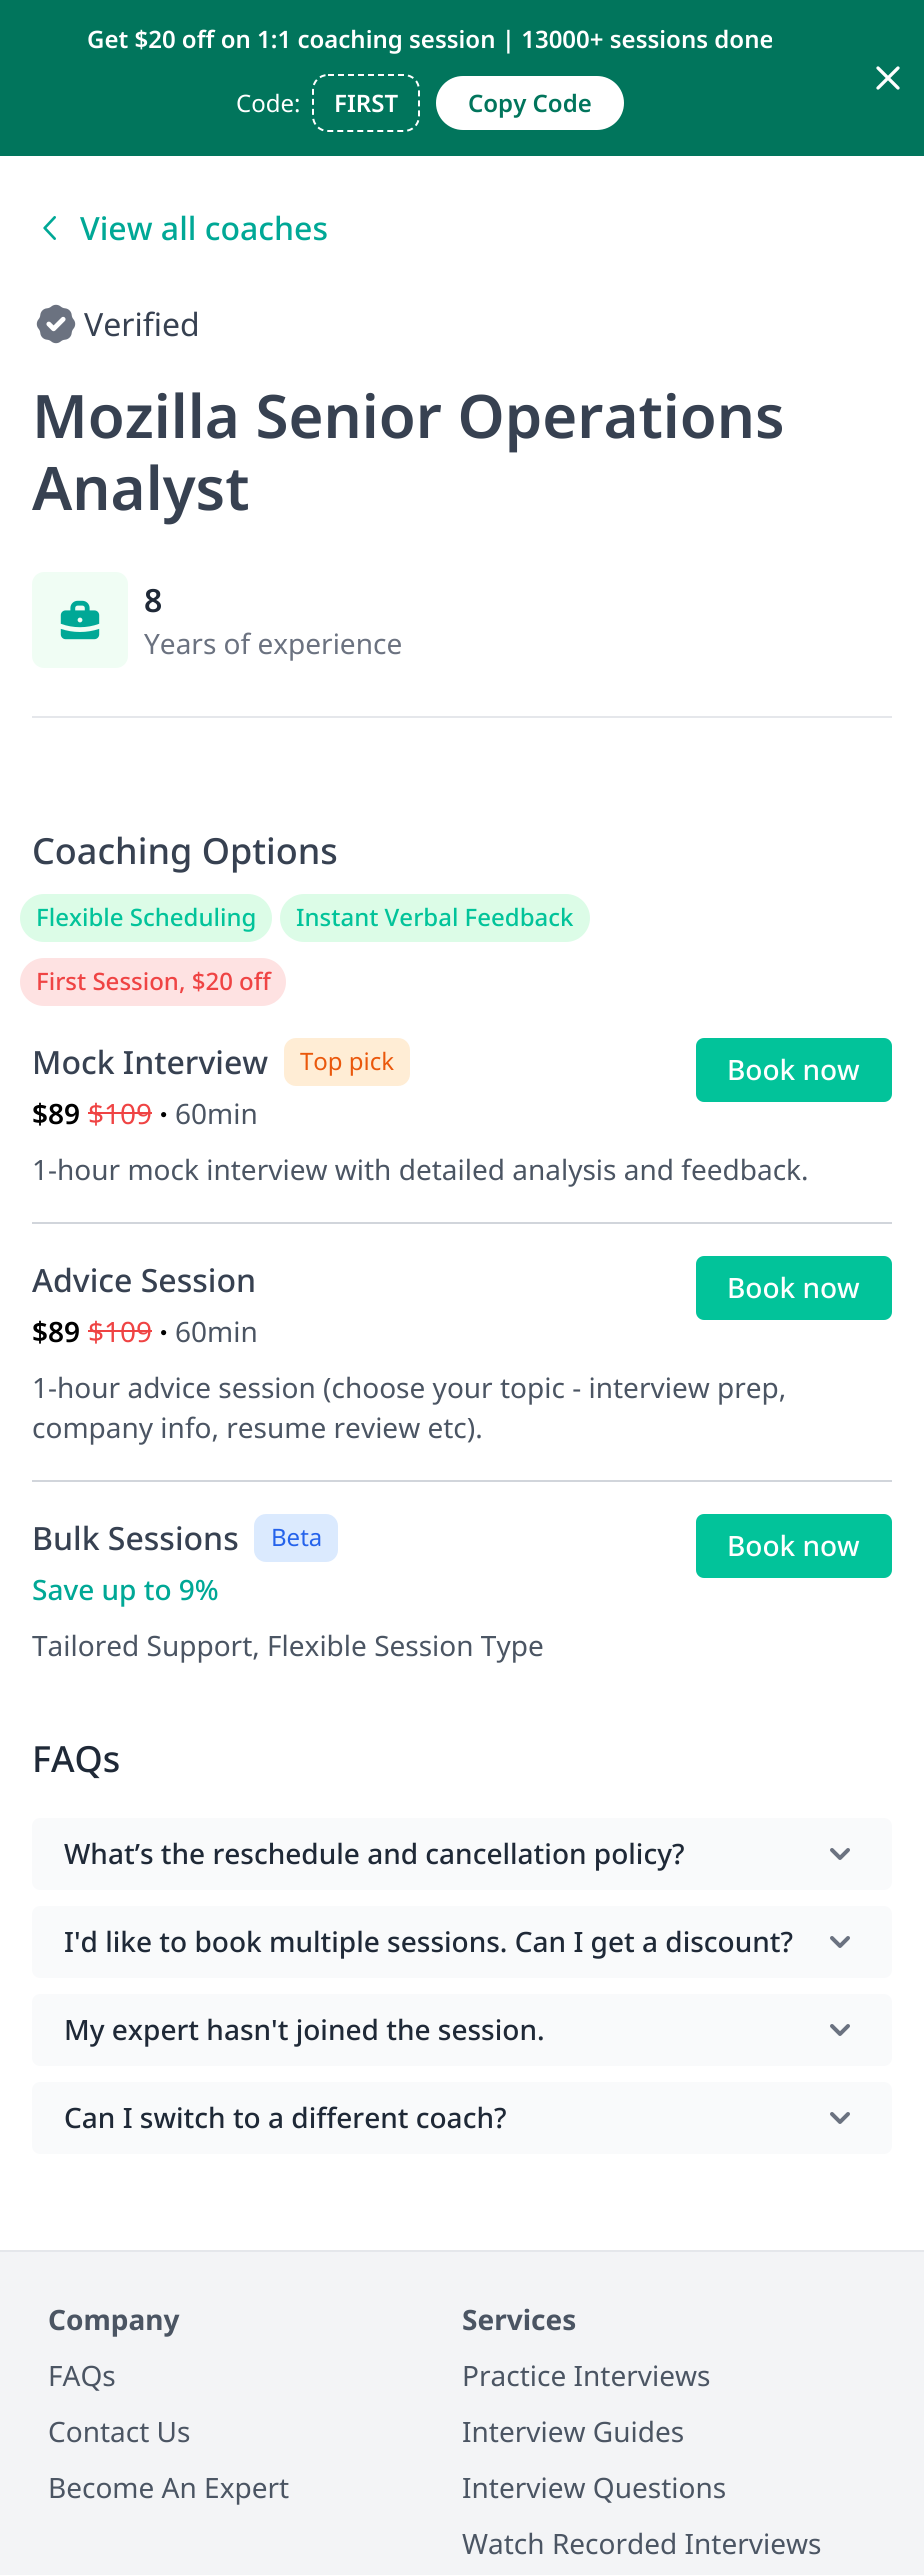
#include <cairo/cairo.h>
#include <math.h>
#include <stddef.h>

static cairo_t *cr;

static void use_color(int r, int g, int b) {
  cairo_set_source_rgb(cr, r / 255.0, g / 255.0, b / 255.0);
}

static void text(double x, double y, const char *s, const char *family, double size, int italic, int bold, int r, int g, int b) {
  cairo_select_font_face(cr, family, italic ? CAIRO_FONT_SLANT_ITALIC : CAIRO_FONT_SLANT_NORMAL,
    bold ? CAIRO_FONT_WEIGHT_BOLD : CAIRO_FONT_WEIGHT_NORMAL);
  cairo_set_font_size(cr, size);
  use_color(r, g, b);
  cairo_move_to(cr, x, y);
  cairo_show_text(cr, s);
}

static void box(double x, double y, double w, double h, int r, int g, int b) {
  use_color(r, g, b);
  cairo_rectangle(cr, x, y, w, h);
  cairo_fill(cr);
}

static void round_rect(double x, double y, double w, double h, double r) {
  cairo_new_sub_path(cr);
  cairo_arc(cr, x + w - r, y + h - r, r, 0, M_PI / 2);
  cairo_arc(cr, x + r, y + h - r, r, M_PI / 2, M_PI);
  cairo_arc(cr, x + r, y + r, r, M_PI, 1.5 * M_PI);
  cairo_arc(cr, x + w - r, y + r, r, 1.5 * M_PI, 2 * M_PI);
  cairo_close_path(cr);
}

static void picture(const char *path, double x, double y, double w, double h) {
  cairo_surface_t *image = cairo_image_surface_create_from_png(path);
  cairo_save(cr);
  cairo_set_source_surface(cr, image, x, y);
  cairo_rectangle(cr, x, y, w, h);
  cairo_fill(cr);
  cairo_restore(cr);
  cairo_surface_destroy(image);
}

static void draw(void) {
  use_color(255, 255, 255);
  cairo_paint(cr);
  box(0, 0, 924, 156, 1, 117, 92);
  cairo_new_path(cr);
  cairo_move_to(cr, 328, 75);
  cairo_line_to(cr, 404, 75);
  cairo_curve_to(cr, 412.5, 75, 419, 81.5, 419, 90);
  cairo_line_to(cr, 419, 116);
  cairo_curve_to(cr, 419, 124.5, 412.5, 131, 404, 131);
  cairo_line_to(cr, 328, 131);
  cairo_curve_to(cr, 319.5, 131, 313, 124.5, 313, 116);
  cairo_line_to(cr, 313, 90);
  cairo_curve_to(cr, 313, 81.5, 319.5, 75, 328, 75);
  cairo_close_path(cr);
  use_color(255, 255, 255);
  cairo_set_dash(cr, (double[]){6, 4}, 2, 0);
  cairo_stroke(cr);
  round_rect(436, 76, 188, 54, 27);
  cairo_fill(cr);
  cairo_new_path(cr);
  cairo_move_to(cr, 898, 68);
  cairo_line_to(cr, 878, 88);
  cairo_move_to(cr, 878, 68);
  cairo_line_to(cr, 898, 88);
  cairo_set_line_width(cr, 3.3);
  cairo_set_line_cap(cr, CAIRO_LINE_CAP_ROUND);
  cairo_set_line_join(cr, CAIRO_LINE_JOIN_ROUND);
  cairo_set_dash(cr, NULL, 0, 0);
  cairo_stroke(cr);
  picture("img_01.png", 43, 216, 13, 24);
  picture("img_02.png", 36, 304, 40, 40);
  use_color(240, 253, 244);
  round_rect(32, 572, 96, 96, 12);
  cairo_fill(cr);
  picture("img_03.png", 60, 600, 40, 40);
  box(32, 716, 860, 2, 229, 231, 235);
  use_color(220, 252, 231);
  round_rect(20, 894, 252, 48, 24);
  cairo_fill(cr);
  round_rect(280, 894, 310, 48, 24);
  cairo_fill(cr);
  use_color(254, 226, 226);
  round_rect(20, 958, 266, 48, 24);
  cairo_fill(cr);
  use_color(255, 237, 213);
  round_rect(284, 1038, 126, 48, 12);
  cairo_fill(cr);
  box(88, 1112, 64, 2, 239, 68, 68);
  use_color(2, 195, 154);
  round_rect(696, 1038, 196, 64, 8);
  cairo_fill(cr);
  box(32, 1222, 860, 2, 209, 213, 219);
  box(88, 1330, 64, 2, 239, 68, 68);
  use_color(2, 195, 154);
  round_rect(696, 1256, 196, 64, 8);
  cairo_fill(cr);
  box(32, 1480, 860, 2, 209, 213, 219);
  use_color(219, 234, 254);
  round_rect(254, 1514, 84, 48, 12);
  cairo_fill(cr);
  use_color(2, 195, 154);
  round_rect(696, 1514, 196, 64, 8);
  cairo_fill(cr);
  use_color(249, 250, 251);
  round_rect(32, 1818, 860, 72, 8);
  cairo_fill(cr);
  picture("img_04.png", 830, 1848, 20, 12);
  round_rect(32, 1906, 860, 72, 8);
  cairo_fill(cr);
  picture("img_04.png", 830, 1936, 20, 12);
  round_rect(32, 1994, 860, 72, 8);
  cairo_fill(cr);
  picture("img_04.png", 830, 2024, 20, 12);
  round_rect(32, 2082, 860, 72, 8);
  cairo_fill(cr);
  picture("img_04.png", 830, 2112, 20, 12);
  box(0, 2252, 924, 323, 243, 244, 246);
  box(0, 2250, 924, 2, 229, 231, 235);
  text(87, 48, "Get $20 off on 1:1 coaching session | 13000+ sessions done", "Noto Sans SemiBold", 24, 0, 0, 255, 255, 255);
  text(236, 112, "Code:", "Noto Sans", 24, 0, 0, 255, 255, 255);
  text(334, 112, "FIRST", "Noto Sans SemiBold", 24, 0, 0, 255, 255, 255);
  text(468, 112, "Copy Code", "Noto Sans SemiBold", 24, 0, 0, 1, 117, 92);
  text(80, 240, "View all coaches", "Noto Sans Medium", 32, 0, 0, 0, 168, 150);
  text(84, 336, "Verified", "Noto Sans", 32, 0, 0, 55, 65, 81);
  text(32, 438, "Mozilla Senior Operations", "Noto Sans SemiBold", 60, 0, 0, 55, 65, 81);
  text(32, 510, "Analyst", "Noto Sans SemiBold", 60, 0, 0, 55, 65, 81);
  text(144, 612, "8", "Noto Sans SemiBold", 32, 0, 0, 31, 41, 55);
  text(144, 654, "Years of experience", "Noto Sans", 28, 0, 0, 107, 114, 128);
  text(32, 864, "Coaching Options", "Noto Sans Medium", 36, 0, 0, 55, 65, 81);
  text(36, 926, "Flexible Scheduling", "Noto Sans Medium", 24, 0, 0, 2, 195, 154);
  text(296, 926, "Instant Verbal Feedback", "Noto Sans Medium", 24, 0, 0, 2, 195, 154);
  text(36, 990, "First Session, $20 off", "Noto Sans Medium", 24, 0, 0, 239, 68, 68);
  text(32, 1074, "Mock Interview", "Noto Sans Medium", 32, 0, 0, 55, 65, 81);
  text(300, 1070, "Top pick", "Noto Sans", 24, 0, 0, 234, 88, 12);
  text(32, 1124, "$89", "Noto Sans SemiBold", 28, 0, 0, 0, 0, 0);
  text(88, 1124, "$109", "Noto Sans", 28, 0, 0, 239, 68, 68);
  text(160, 1118, "●", "Liberation Sans", 12, 0, 0, 0, 0, 0);
  text(175, 1124, "60min", "Noto Sans", 28, 0, 0, 75, 85, 99);
  text(727, 1080, "Book now", "Noto Sans Medium", 28, 0, 0, 255, 255, 255);
  text(32, 1180, "1-hour mock interview with detailed analysis and feedback.", "Noto Sans", 28, 0, 0, 75, 85, 99);
  text(32, 1292, "Advice Session", "Noto Sans Medium", 32, 0, 0, 55, 65, 81);
  text(32, 1342, "$89", "Noto Sans SemiBold", 28, 0, 0, 0, 0, 0);
  text(88, 1342, "$109", "Noto Sans", 28, 0, 0, 239, 68, 68);
  text(160, 1336, "●", "Liberation Sans", 12, 0, 0, 0, 0, 0);
  text(175, 1342, "60min", "Noto Sans", 28, 0, 0, 75, 85, 99);
  text(727, 1298, "Book now", "Noto Sans Medium", 28, 0, 0, 255, 255, 255);
  text(32, 1398, "1-hour advice session (choose your topic - interview prep,", "Noto Sans", 28, 0, 0, 75, 85, 99);
  text(32, 1438, "company info, resume review etc).", "Noto Sans", 28, 0, 0, 75, 85, 99);
  text(32, 1550, "Bulk Sessions", "Noto Sans Medium", 32, 0, 0, 55, 65, 81);
  text(271, 1546, "Beta", "Noto Sans", 24, 0, 0, 37, 99, 235);
  text(32, 1600, "Save up to 9%", "Noto Sans Medium", 28, 0, 0, 0, 168, 150);
  text(727, 1556, "Book now", "Noto Sans Medium", 28, 0, 0, 255, 255, 255);
  text(32, 1656, "Tailored Support, Flexible Session Type", "Noto Sans", 28, 0, 0, 75, 85, 99);
  text(32, 1772, "FAQs", "Noto Sans Medium", 36, 0, 0, 31, 41, 55);
  text(64, 1864, "What’s the reschedule and cancellation policy?", "Noto Sans Medium", 28, 0, 0, 31, 41, 55);
  text(64, 1952, "I'd like to book multiple sessions. Can I get a discount?", "Noto Sans Medium", 28, 0, 0, 31, 41, 55);
  text(64, 2040, "My expert hasn't joined the session.", "Noto Sans Medium", 28, 0, 0, 31, 41, 55);
  text(64, 2128, "Can I switch to a different coach?", "Noto Sans Medium", 28, 0, 0, 31, 41, 55);
  text(48, 2330, "Company", "Noto Sans", 28, 0, 1, 75, 85, 99);
  text(48, 2386, "FAQs", "Noto Sans", 28, 0, 0, 75, 85, 99);
  text(48, 2442, "Contact Us", "Noto Sans", 28, 0, 0, 75, 85, 99);
  text(48, 2498, "Become An Expert", "Noto Sans", 28, 0, 0, 75, 85, 99);
  text(462, 2330, "Services", "Noto Sans", 28, 0, 1, 75, 85, 99);
  text(462, 2386, "Practice Interviews", "Noto Sans", 28, 0, 0, 75, 85, 99);
  text(462, 2442, "Interview Guides", "Noto Sans", 28, 0, 0, 75, 85, 99);
  text(462, 2498, "Interview Questions", "Noto Sans", 28, 0, 0, 75, 85, 99);
  text(462, 2554, "Watch Recorded Interviews", "Noto Sans", 28, 0, 0, 75, 85, 99);
}

int main(void) {
  cairo_surface_t *surface = cairo_image_surface_create(CAIRO_FORMAT_RGB24, 924, 2575);
  cr = cairo_create(surface);
  cairo_font_options_t *options = cairo_font_options_create();
  cairo_font_options_set_hint_metrics(options, CAIRO_HINT_METRICS_OFF);
  cairo_font_options_set_hint_style(options, CAIRO_HINT_STYLE_NONE);
  cairo_set_font_options(cr, options);
  cairo_set_miter_limit(cr, 4);
  draw();
  cairo_surface_write_to_png(surface, "out.png");
  cairo_font_options_destroy(options);
  cairo_destroy(cr);
  cairo_surface_destroy(surface);
  return 0;
}
